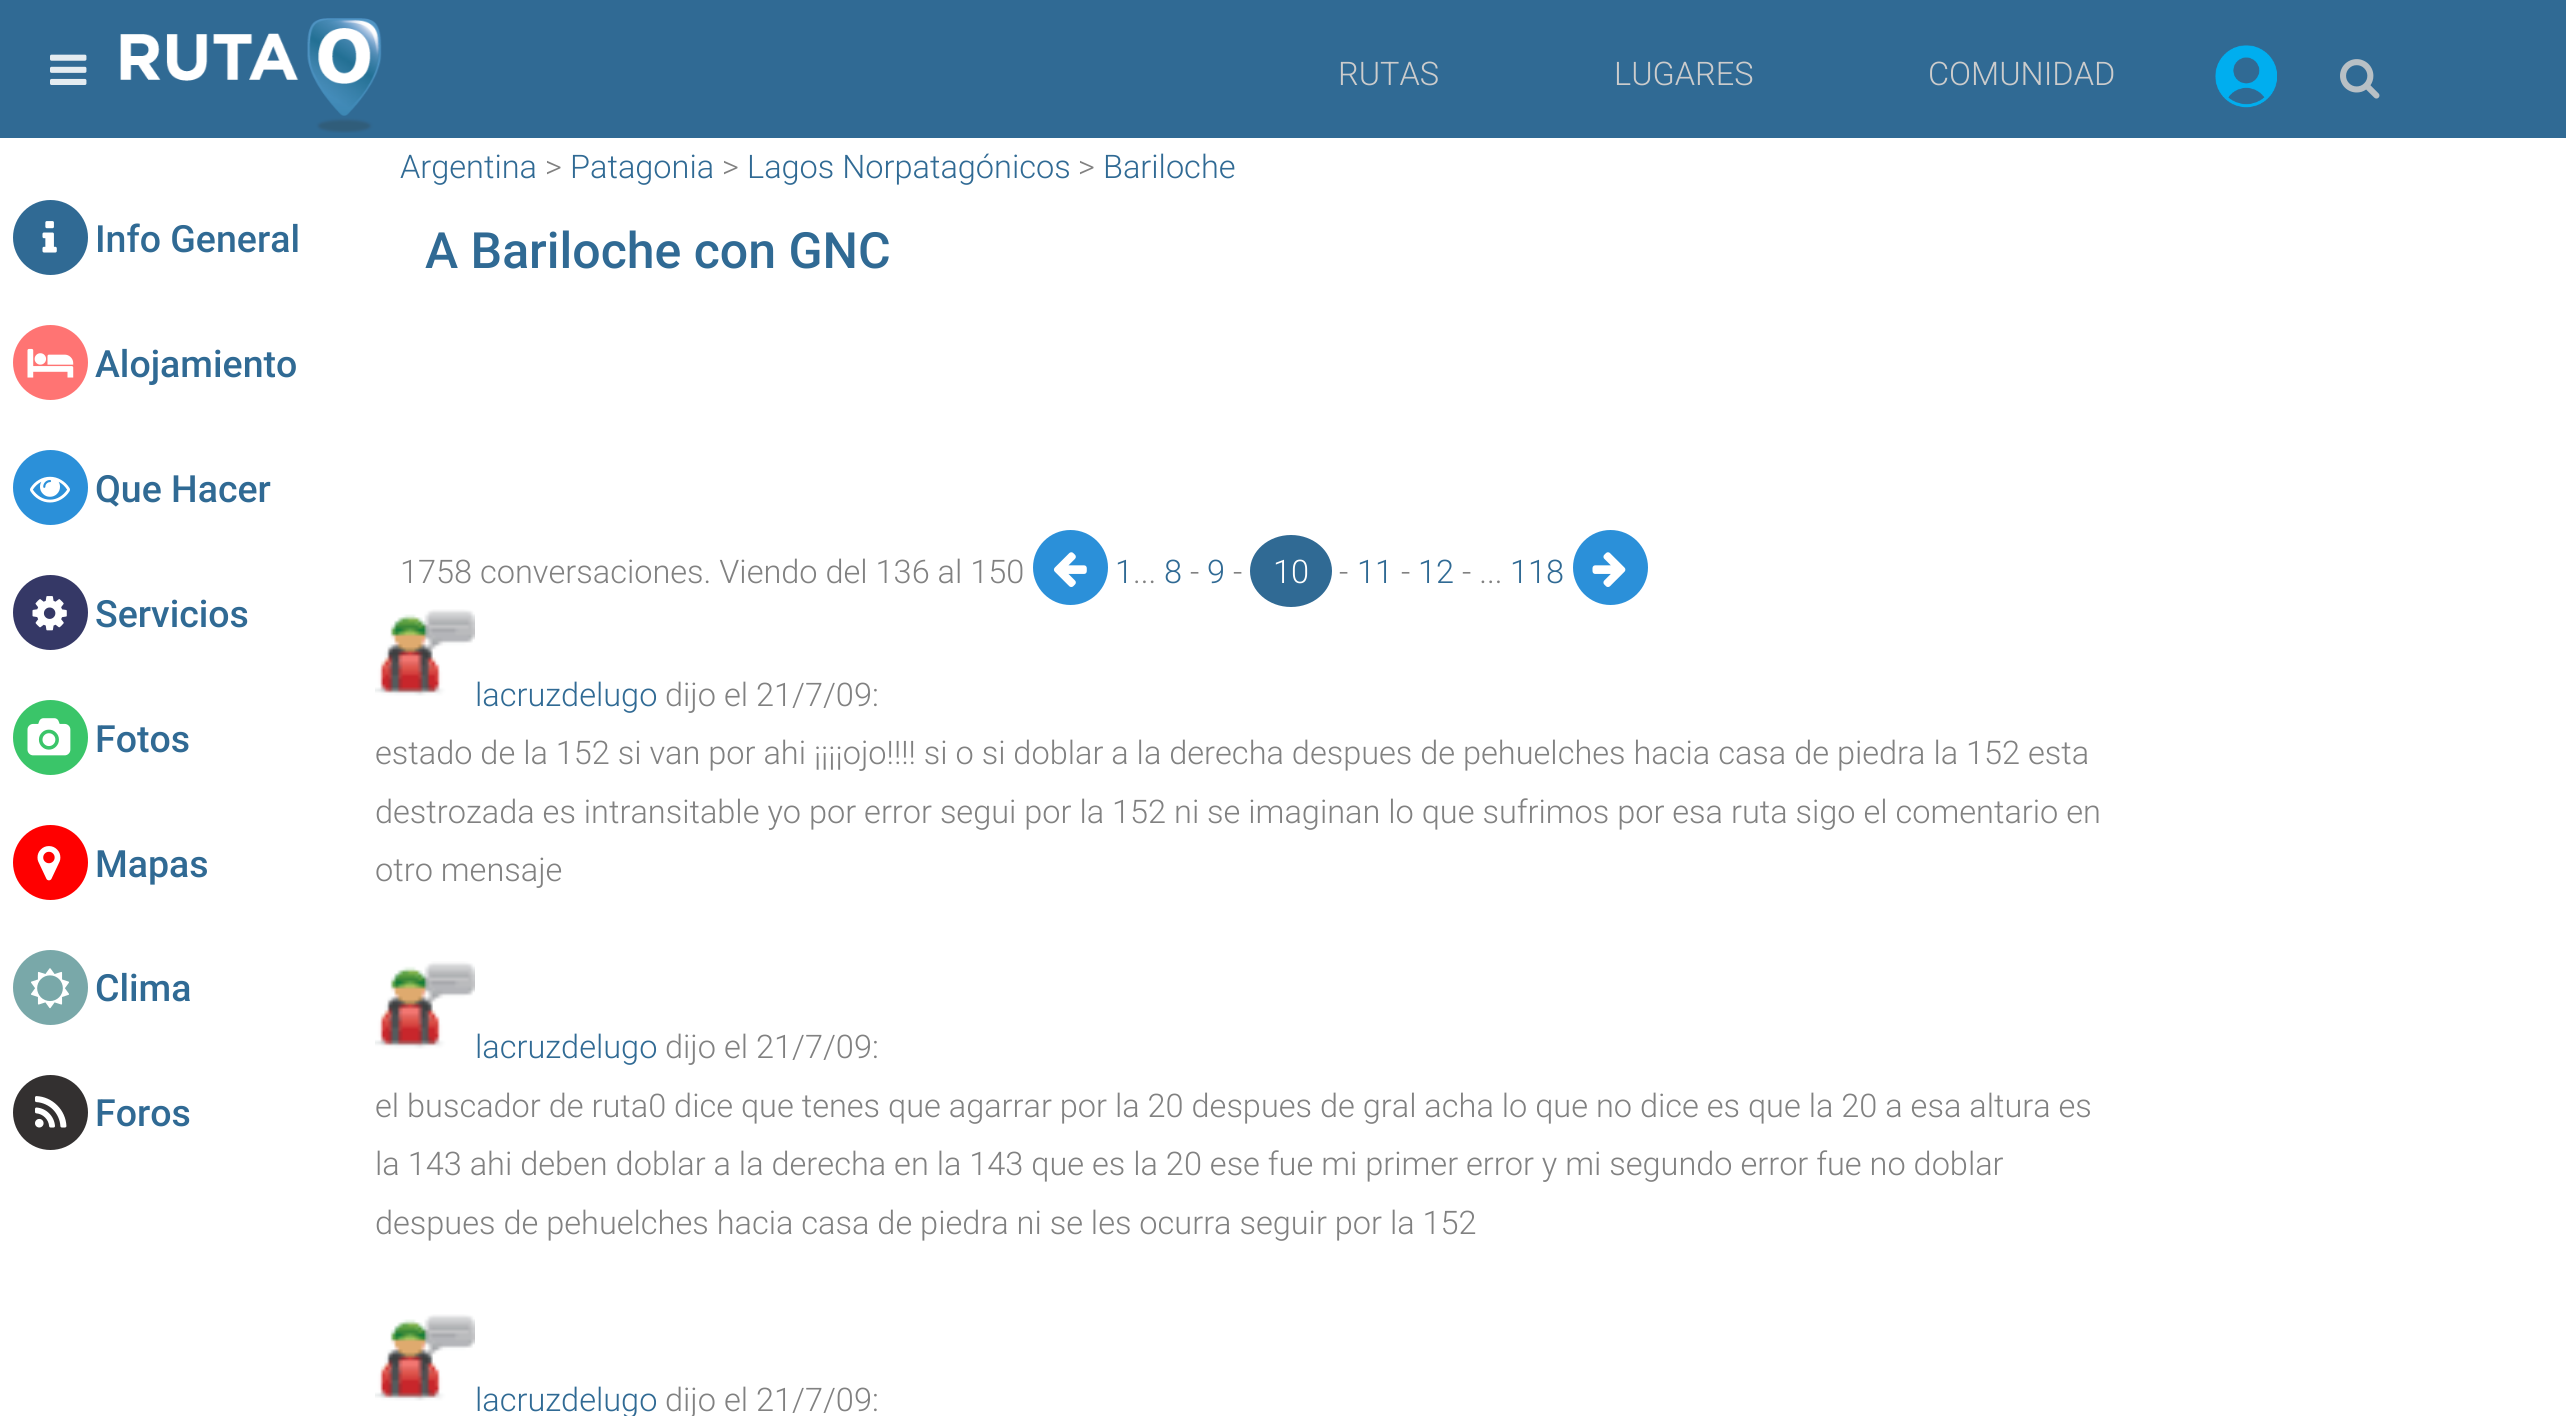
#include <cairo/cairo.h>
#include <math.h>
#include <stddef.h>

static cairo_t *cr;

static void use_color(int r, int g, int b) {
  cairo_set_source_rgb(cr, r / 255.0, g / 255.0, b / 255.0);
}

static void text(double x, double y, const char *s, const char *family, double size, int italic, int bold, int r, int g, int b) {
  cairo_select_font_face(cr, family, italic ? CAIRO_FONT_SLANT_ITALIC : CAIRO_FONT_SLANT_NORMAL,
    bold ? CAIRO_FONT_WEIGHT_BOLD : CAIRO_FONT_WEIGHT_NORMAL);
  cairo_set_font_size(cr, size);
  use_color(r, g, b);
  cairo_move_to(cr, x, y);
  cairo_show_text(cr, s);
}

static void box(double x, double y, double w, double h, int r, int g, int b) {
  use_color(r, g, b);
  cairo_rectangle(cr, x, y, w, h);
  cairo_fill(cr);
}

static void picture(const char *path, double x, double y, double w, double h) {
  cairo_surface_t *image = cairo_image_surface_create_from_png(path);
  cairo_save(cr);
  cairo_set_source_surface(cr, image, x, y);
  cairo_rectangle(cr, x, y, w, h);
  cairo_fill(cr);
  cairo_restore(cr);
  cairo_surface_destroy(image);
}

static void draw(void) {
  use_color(255, 255, 255);
  cairo_paint(cr);
  box(0, 0, 2566, 138, 48, 106, 148);
  picture("img_01.png", 50, 54, 37, 31);
  picture("img_02.png", 120, 18, 262, 115);
  picture("img_03.png", 2215, 45, 62, 63);
  picture("img_04.png", 2340, 59, 40, 40);
  cairo_arc(cr, 50.5, 237.5, 37.5, 0, 2 * M_PI);
  cairo_fill(cr);
  picture("img_05.png", 42, 221, 15, 32);
  use_color(255, 116, 115);
  cairo_arc(cr, 50.5, 362.5, 37.5, 0, 2 * M_PI);
  cairo_fill(cr);
  picture("img_06.png", 27, 348, 47, 30);
  use_color(43, 144, 217);
  cairo_arc(cr, 50.5, 487.5, 37.5, 0, 2 * M_PI);
  cairo_fill(cr);
  picture("img_07.png", 30, 476, 40, 27);
  use_color(53, 56, 102);
  cairo_arc(cr, 50.5, 612.5, 37.5, 0, 2 * M_PI);
  cairo_fill(cr);
  picture("img_08.png", 32, 596, 35, 35);
  use_color(58, 197, 105);
  cairo_arc(cr, 50.5, 737.5, 37.5, 0, 2 * M_PI);
  cairo_fill(cr);
  picture("img_09.png", 27, 718, 44, 38);
  use_color(255, 0, 0);
  cairo_arc(cr, 50.5, 862.5, 37.5, 0, 2 * M_PI);
  cairo_fill(cr);
  picture("img_10.png", 37, 846, 24, 35);
  use_color(121, 168, 169);
  cairo_arc(cr, 50.5, 987.5, 37.5, 0, 2 * M_PI);
  cairo_fill(cr);
  picture("img_11.png", 31, 968, 38, 41);
  use_color(51, 48, 48);
  cairo_arc(cr, 50.5, 1112.5, 37.5, 0, 2 * M_PI);
  cairo_fill(cr);
  picture("img_12.png", 35, 1096, 32, 32);
  use_color(43, 144, 217);
  cairo_arc(cr, 1070.5, 567.5, 37.5, 0, 2 * M_PI);
  cairo_fill(cr);
  picture("img_13.png", 1053, 552, 34, 35);
  use_color(48, 106, 148);
  cairo_new_path(cr);
  cairo_move_to(cr, 1291, 535);
  cairo_curve_to(cr, 1313.5, 535, 1332, 551, 1332, 571);
  cairo_curve_to(cr, 1332, 591, 1313.5, 607, 1291, 607);
  cairo_curve_to(cr, 1268.5, 607, 1250, 591, 1250, 571);
  cairo_curve_to(cr, 1250, 551, 1268.5, 535, 1291, 535);
  cairo_close_path(cr);
  cairo_fill(cr);
  use_color(43, 144, 217);
  cairo_arc(cr, 1610.5, 567.5, 37.5, 0, 2 * M_PI);
  cairo_fill(cr);
  picture("img_14.png", 1592, 552, 34, 35);
  picture("img_15.png", 375, 609, 100, 87);
  picture("img_16.png", 375, 961, 100, 88);
  picture("img_17.png", 375, 1314, 100, 87);
  text(1338, 85, "RUTAS", "Roboto Light", 32.5, 0, 0, 204, 204, 204);
  text(1614, 85, "LUGARES", "Roboto Light", 32.5, 0, 0, 204, 204, 204);
  text(1928, 85, "COMUNIDAD", "Roboto Light", 32.5, 0, 0, 204, 204, 204);
  text(95, 252, "Info General", "Roboto Medium", 37.5, 0, 0, 48, 106, 148);
  text(95, 377, "Alojamiento", "Roboto Medium", 37.5, 0, 0, 48, 106, 148);
  text(95, 502, "Que Hacer", "Roboto Medium", 37.5, 0, 0, 48, 106, 148);
  text(95, 627, "Servicios", "Roboto Medium", 37.5, 0, 0, 48, 106, 148);
  text(95, 752, "Fotos", "Roboto Medium", 37.5, 0, 0, 48, 106, 148);
  text(95, 877, "Mapas", "Roboto Medium", 37.5, 0, 0, 48, 106, 148);
  text(95, 1001, "Clima", "Roboto Medium", 37.5, 0, 0, 48, 106, 148);
  text(95, 1126, "Foros", "Roboto Medium", 37.5, 0, 0, 48, 106, 148);
  text(400, 178, "Argentina", "Roboto Light", 32.5, 0, 0, 48, 106, 148);
  text(545, 178, ">", "Roboto Light", 32.5, 0, 0, 129, 129, 129);
  text(570, 178, "Patagonia", "Roboto Light", 32.5, 0, 0, 48, 106, 148);
  text(722, 178, ">", "Roboto Light", 32.5, 0, 0, 129, 129, 129);
  text(747, 178, "Lagos Norpatagónicos", "Roboto Light", 32.5, 0, 0, 48, 106, 148);
  text(1078, 178, ">", "Roboto Light", 32.5, 0, 0, 129, 129, 129);
  text(1103, 178, "Bariloche", "Roboto Light", 32.5, 0, 0, 48, 106, 148);
  text(425, 268, "A Bariloche con GNC", "Roboto Medium", 50, 0, 0, 48, 106, 148);
  text(400, 583, "1758 conversaciones. Viendo del 136 al 150", "Roboto Light", 32.5, 0, 0, 129, 129, 129);
  text(1115, 583, "1", "Roboto Light", 32.5, 0, 0, 48, 106, 148);
  text(1133, 583, "...", "Roboto Light", 32.5, 0, 0, 129, 129, 129);
  text(1164, 583, "8", "Roboto Light", 32.5, 0, 0, 48, 106, 148);
  text(1190, 583, "-", "Roboto Light", 32.5, 0, 0, 129, 129, 129);
  text(1207, 583, "9", "Roboto Light", 32.5, 0, 0, 48, 106, 148);
  text(1233, 583, "-", "Roboto Light", 32.5, 0, 0, 129, 129, 129);
  text(1273, 583, "10", "Roboto Light", 32.5, 0, 0, 255, 255, 255);
  text(1339, 583, "-", "Roboto Light", 32.5, 0, 0, 129, 129, 129);
  text(1357, 583, "11", "Roboto Light", 32.5, 0, 0, 48, 106, 148);
  text(1401, 583, "-", "Roboto Light", 32.5, 0, 0, 129, 129, 129);
  text(1418, 583, "12", "Roboto Light", 32.5, 0, 0, 48, 106, 148);
  text(1462, 583, "- ...", "Roboto Light", 32.5, 0, 0, 129, 129, 129);
  text(1510, 583, "118", "Roboto Light", 32.5, 0, 0, 48, 106, 148);
  text(475, 706, "lacruzdelugo", "Roboto Light", 32.5, 0, 0, 48, 106, 148);
  text(665, 706, "dijo el 21/7/09:", "Roboto Light", 32.5, 0, 0, 129, 129, 129);
  text(375, 764, "estado de la 152 si van por ahi ¡¡¡¡ojo!!!! si o si doblar a la derecha despues de pehuelches hacia casa de piedra la 152 esta", "Roboto Light", 32.5, 0, 0, 129, 129, 129);
  text(375, 823, "destrozada es intransitable yo por error segui por la 152 ni se imaginan lo que sufrimos por esa ruta sigo el comentario en", "Roboto Light", 32.5, 0, 0, 129, 129, 129);
  text(375, 881, "otro mensaje", "Roboto Light", 32.5, 0, 0, 129, 129, 129);
  text(475, 1058, "lacruzdelugo", "Roboto Light", 32.5, 0, 0, 48, 106, 148);
  text(665, 1058, "dijo el 21/7/09:", "Roboto Light", 32.5, 0, 0, 129, 129, 129);
  text(375, 1117, "el buscador de ruta0 dice que tenes que agarrar por la 20 despues de gral acha lo que no dice es que la 20 a esa altura es", "Roboto Light", 32.5, 0, 0, 129, 129, 129);
  text(375, 1175, "la 143 ahi deben doblar a la derecha en la 143 que es la 20 ese fue mi primer error y mi segundo error fue no doblar", "Roboto Light", 32.5, 0, 0, 129, 129, 129);
  text(375, 1234, "despues de pehuelches hacia casa de piedra ni se les ocurra seguir por la 152", "Roboto Light", 32.5, 0, 0, 129, 129, 129);
  text(475, 1411, "lacruzdelugo", "Roboto Light", 32.5, 0, 0, 48, 106, 148);
  text(665, 1411, "dijo el 21/7/09:", "Roboto Light", 32.5, 0, 0, 129, 129, 129);
}

int main(void) {
  cairo_surface_t *surface = cairo_image_surface_create(CAIRO_FORMAT_RGB24, 2566, 1416);
  cr = cairo_create(surface);
  cairo_font_options_t *options = cairo_font_options_create();
  cairo_font_options_set_hint_metrics(options, CAIRO_HINT_METRICS_OFF);
  cairo_font_options_set_hint_style(options, CAIRO_HINT_STYLE_NONE);
  cairo_set_font_options(cr, options);
  cairo_set_miter_limit(cr, 4);
  draw();
  cairo_surface_write_to_png(surface, "out.png");
  cairo_font_options_destroy(options);
  cairo_destroy(cr);
  cairo_surface_destroy(surface);
  return 0;
}
